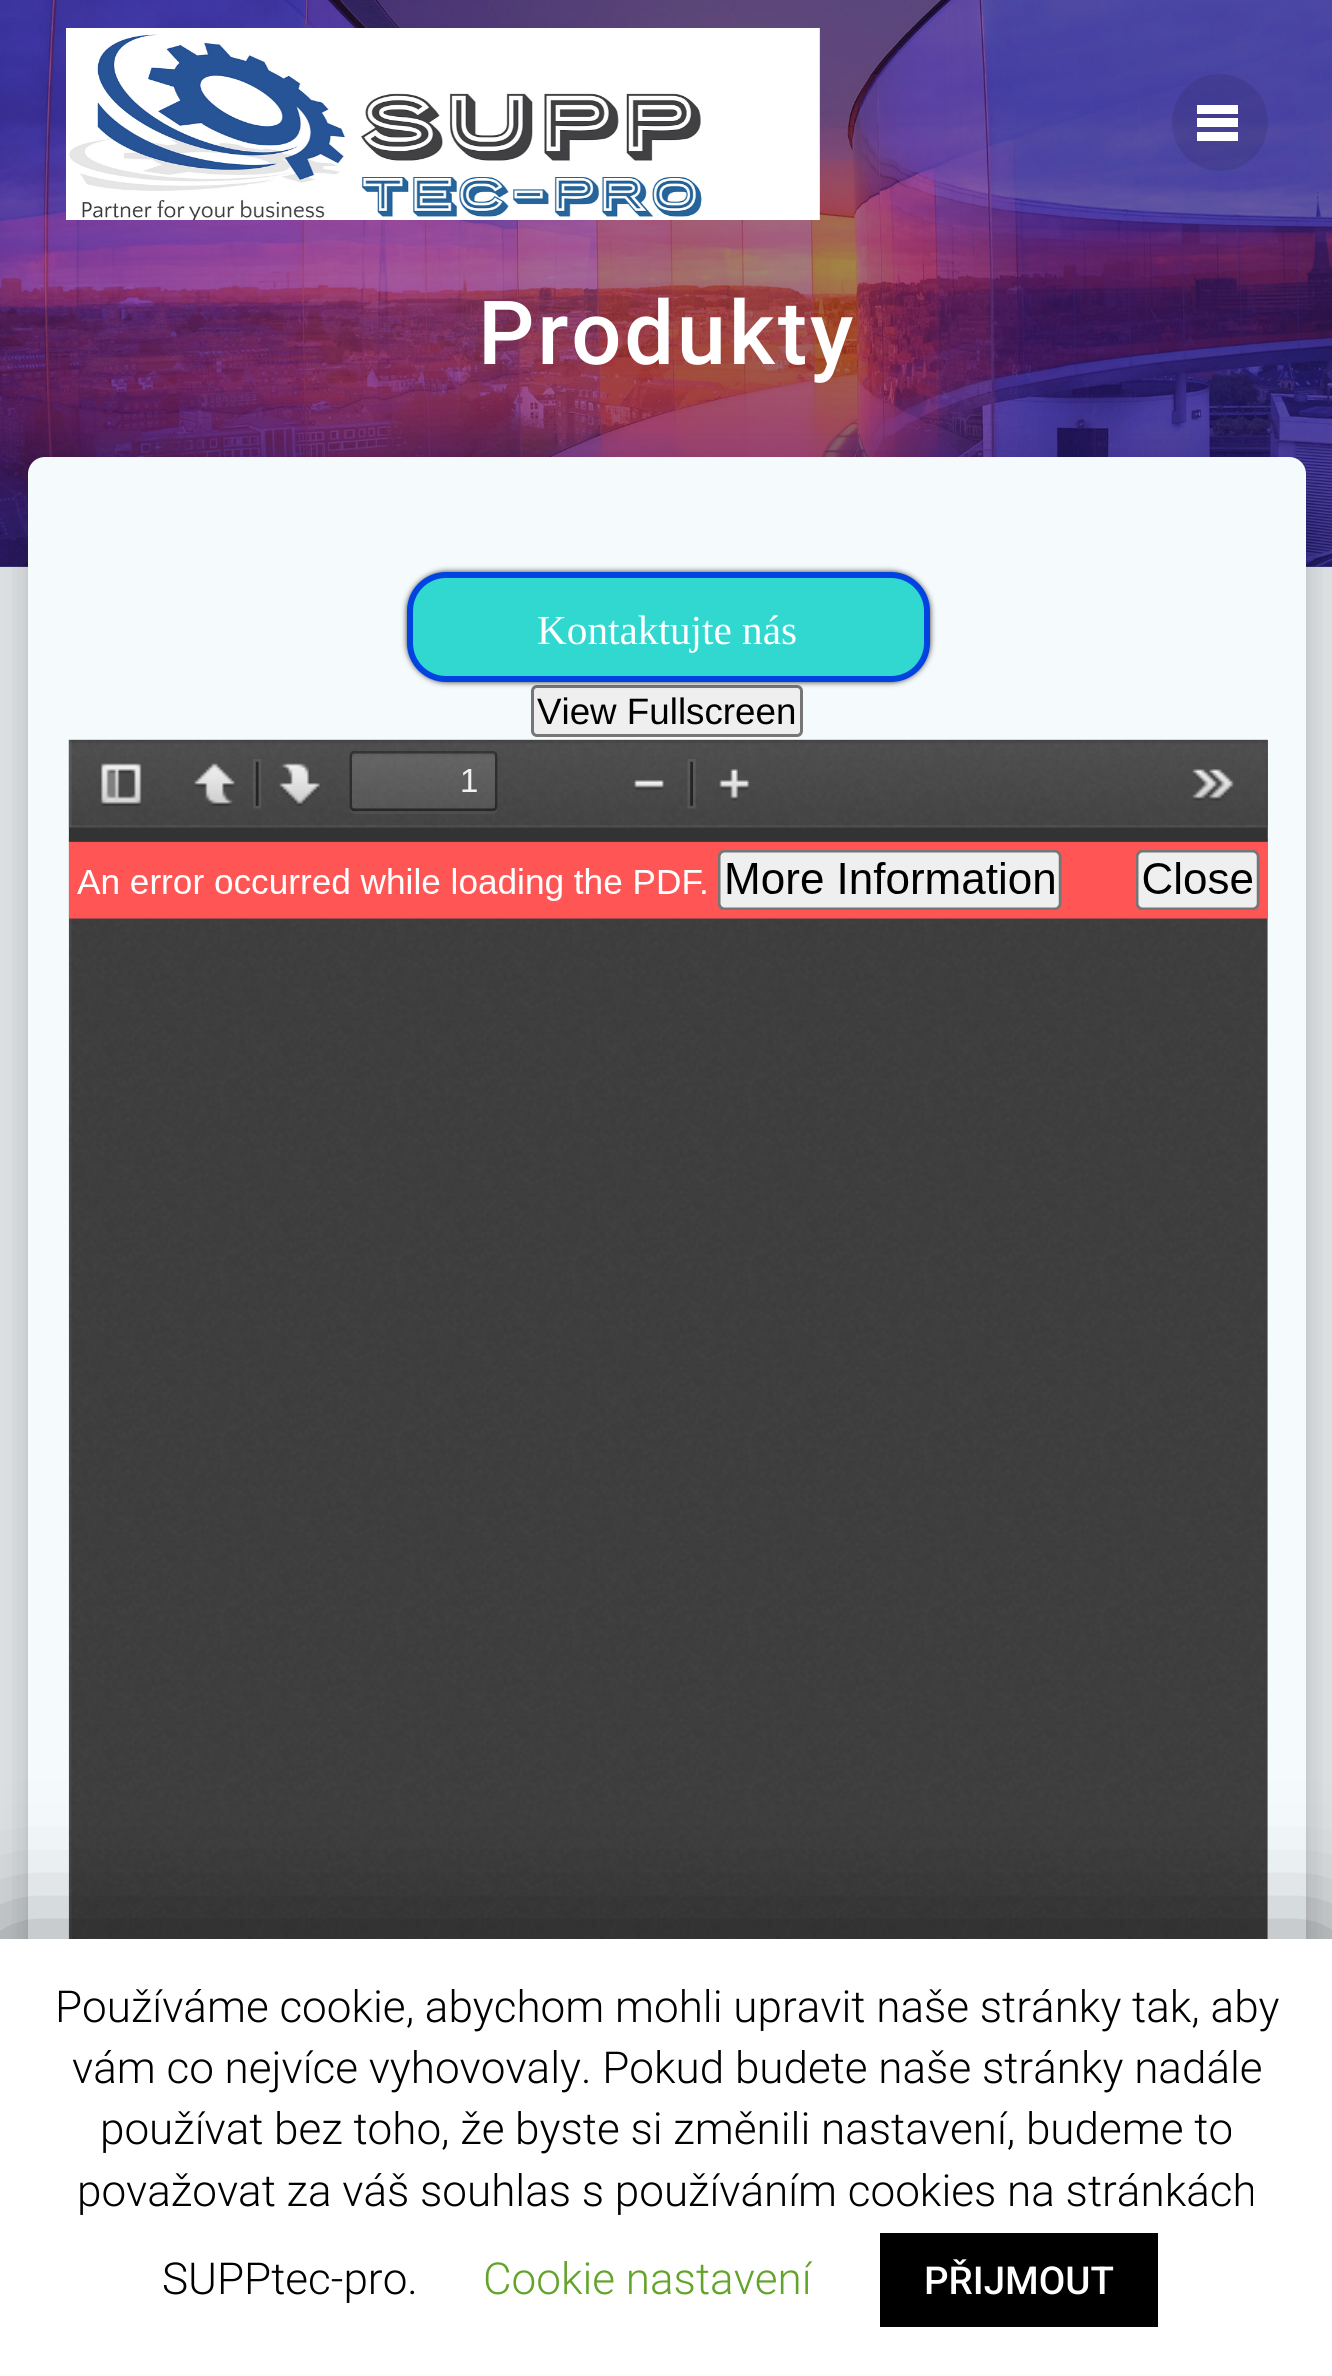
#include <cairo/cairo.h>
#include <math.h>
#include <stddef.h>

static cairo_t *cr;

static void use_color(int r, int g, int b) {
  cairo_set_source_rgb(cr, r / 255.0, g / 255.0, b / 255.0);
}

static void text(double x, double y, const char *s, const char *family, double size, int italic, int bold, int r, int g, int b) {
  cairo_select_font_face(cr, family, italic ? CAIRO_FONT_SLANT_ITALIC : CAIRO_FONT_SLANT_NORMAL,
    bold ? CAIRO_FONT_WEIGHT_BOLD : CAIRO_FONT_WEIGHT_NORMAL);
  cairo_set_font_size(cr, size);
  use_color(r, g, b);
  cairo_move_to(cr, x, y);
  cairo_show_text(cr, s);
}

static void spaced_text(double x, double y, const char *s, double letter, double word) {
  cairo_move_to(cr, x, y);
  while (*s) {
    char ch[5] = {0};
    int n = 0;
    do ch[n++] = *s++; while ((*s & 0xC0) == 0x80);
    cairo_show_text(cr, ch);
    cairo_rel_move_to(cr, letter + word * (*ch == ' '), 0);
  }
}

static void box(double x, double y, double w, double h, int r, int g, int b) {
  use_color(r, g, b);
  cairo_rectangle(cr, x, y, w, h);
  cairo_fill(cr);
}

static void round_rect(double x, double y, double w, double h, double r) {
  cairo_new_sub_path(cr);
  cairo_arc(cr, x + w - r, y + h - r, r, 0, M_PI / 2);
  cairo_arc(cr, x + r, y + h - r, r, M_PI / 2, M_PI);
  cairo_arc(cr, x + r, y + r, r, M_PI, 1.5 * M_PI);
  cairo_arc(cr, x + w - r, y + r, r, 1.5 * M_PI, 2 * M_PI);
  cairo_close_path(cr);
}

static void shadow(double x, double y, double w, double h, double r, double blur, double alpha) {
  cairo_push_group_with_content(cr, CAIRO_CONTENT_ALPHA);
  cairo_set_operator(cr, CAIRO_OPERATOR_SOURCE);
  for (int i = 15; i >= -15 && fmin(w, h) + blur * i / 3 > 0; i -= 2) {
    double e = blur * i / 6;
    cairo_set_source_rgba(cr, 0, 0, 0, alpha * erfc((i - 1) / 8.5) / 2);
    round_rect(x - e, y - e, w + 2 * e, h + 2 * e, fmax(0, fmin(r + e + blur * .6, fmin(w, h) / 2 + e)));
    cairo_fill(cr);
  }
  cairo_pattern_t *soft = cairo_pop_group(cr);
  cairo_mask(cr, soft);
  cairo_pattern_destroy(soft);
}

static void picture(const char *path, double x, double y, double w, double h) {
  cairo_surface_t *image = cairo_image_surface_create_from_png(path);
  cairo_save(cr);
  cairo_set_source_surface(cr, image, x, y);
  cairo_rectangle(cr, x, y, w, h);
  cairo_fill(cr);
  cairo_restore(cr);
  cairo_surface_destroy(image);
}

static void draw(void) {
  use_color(245, 250, 253);
  cairo_paint(cr);
  box(0, 566, 1332, 1, 73, 79, 140);
  picture("img_02.png", 0, 0, 1332, 567);
  picture("img_01.png", 66, 28, 754, 192);
  cairo_set_source_rgba(cr, 0, 0, 0, 0.1);
  round_rect(1172, 74, 96, 97, 48);
  cairo_fill(cr);
  use_color(255, 255, 255);
  cairo_new_path(cr);
  cairo_move_to(cr, 1197, 105);
  cairo_line_to(cr, 1238, 105);
  cairo_line_to(cr, 1238, 114);
  cairo_line_to(cr, 1197, 114);
  cairo_close_path(cr);
  cairo_move_to(cr, 1197, 118);
  cairo_line_to(cr, 1238, 118);
  cairo_line_to(cr, 1238, 127);
  cairo_line_to(cr, 1197, 127);
  cairo_close_path(cr);
  cairo_move_to(cr, 1197, 132);
  cairo_line_to(cr, 1238, 132);
  cairo_line_to(cr, 1238, 141);
  cairo_line_to(cr, 1197, 141);
  cairo_close_path(cr);
  cairo_fill(cr);
  use_color(0, 0, 0);
  shadow(8, 459, 1318, 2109, 36, 52, 0.12);
  shadow(19, 503, 1296, 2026, 25, 42.5, 0.14);
  shadow(44, 501, 1246, 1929, 0, 18, 0.2);
  use_color(245, 250, 253);
  cairo_new_path(cr);
  cairo_move_to(cr, 45, 457);
  cairo_line_to(cr, 1289, 457);
  cairo_curve_to(cr, 1298.5, 457, 1306, 464.5, 1306, 474);
  cairo_line_to(cr, 1306, 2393);
  cairo_line_to(cr, 28, 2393);
  cairo_line_to(cr, 28, 474);
  cairo_curve_to(cr, 28, 464.5, 35.5, 457, 45, 457);
  cairo_close_path(cr);
  cairo_fill(cr);
  use_color(239, 239, 239);
  round_rect(532.5, 686.5, 269, 49, 4.5);
  cairo_fill_preserve(cr);
  use_color(118, 118, 118);
  cairo_set_line_width(cr, 3);
  cairo_stroke(cr);
  use_color(51, 51, 51);
  shadow(407, 572, 523, 110, 39, 3, 1);
  use_color(49, 216, 208);
  round_rect(410, 575, 517, 104, 36);
  cairo_fill_preserve(cr);
  use_color(0, 67, 224);
  cairo_set_line_width(cr, 6);
  cairo_stroke(cr);
  picture("img_03.png", 68, 739, 1200, 1200);
  use_color(0, 0, 0);
  shadow(0, 1953, 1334, 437, 0, 69, 0.5);
  box(0, 1939, 1332, 437, 255, 255, 255);
  box(880, 2233, 278, 94, 0, 0, 0);
  cairo_select_font_face(cr, "Roboto Medium", CAIRO_FONT_SLANT_NORMAL, CAIRO_FONT_WEIGHT_NORMAL);
  cairo_set_font_size(cr, 88.5);
  use_color(255, 255, 255);
  spaced_text(478, 364, "Produkty", 2.75, 0);
  text(537, 644, "Kontaktujte nás", "Liberation Serif", 41.25, 0, 0, 255, 255, 255);
  text(537, 724, "View Fullscreen", "Liberation Sans", 36.75, 0, 0, 0, 0, 0);
  text(55, 2022, "Používáme cookie, abychom mohli upravit naše stránky tak, aby", "Roboto Light", 44, 0, 0, 0, 0, 0);
  text(72, 2083, "vám co nejvíce vyhovovaly. Pokud budete naše stránky nadále", "Roboto Light", 44, 0, 0, 0, 0, 0);
  text(100, 2144, "používat bez toho, že byste si změnili nastavení, budeme to", "Roboto Light", 44, 0, 0, 0, 0, 0);
  text(77, 2206, "považovat za váš souhlas s používáním cookies na stránkách", "Roboto Light", 44, 0, 0, 0, 0, 0);
  text(162, 2294, "SUPPtec-pro.", "Roboto Light", 44, 0, 0, 0, 0, 0);
  text(483, 2294, "Cookie nastavení", "Roboto Light", 44, 0, 0, 98, 163, 41);
  text(924, 2294, "PŘIJMOUT", "Roboto Medium", 38.5, 0, 0, 255, 255, 255);
}

int main(void) {
  cairo_surface_t *surface = cairo_image_surface_create(CAIRO_FORMAT_RGB24, 1332, 2376);
  cr = cairo_create(surface);
  cairo_font_options_t *options = cairo_font_options_create();
  cairo_font_options_set_hint_metrics(options, CAIRO_HINT_METRICS_OFF);
  cairo_font_options_set_hint_style(options, CAIRO_HINT_STYLE_NONE);
  cairo_set_font_options(cr, options);
  cairo_set_miter_limit(cr, 4);
  draw();
  cairo_surface_write_to_png(surface, "out.png");
  cairo_font_options_destroy(options);
  cairo_destroy(cr);
  cairo_surface_destroy(surface);
  return 0;
}
